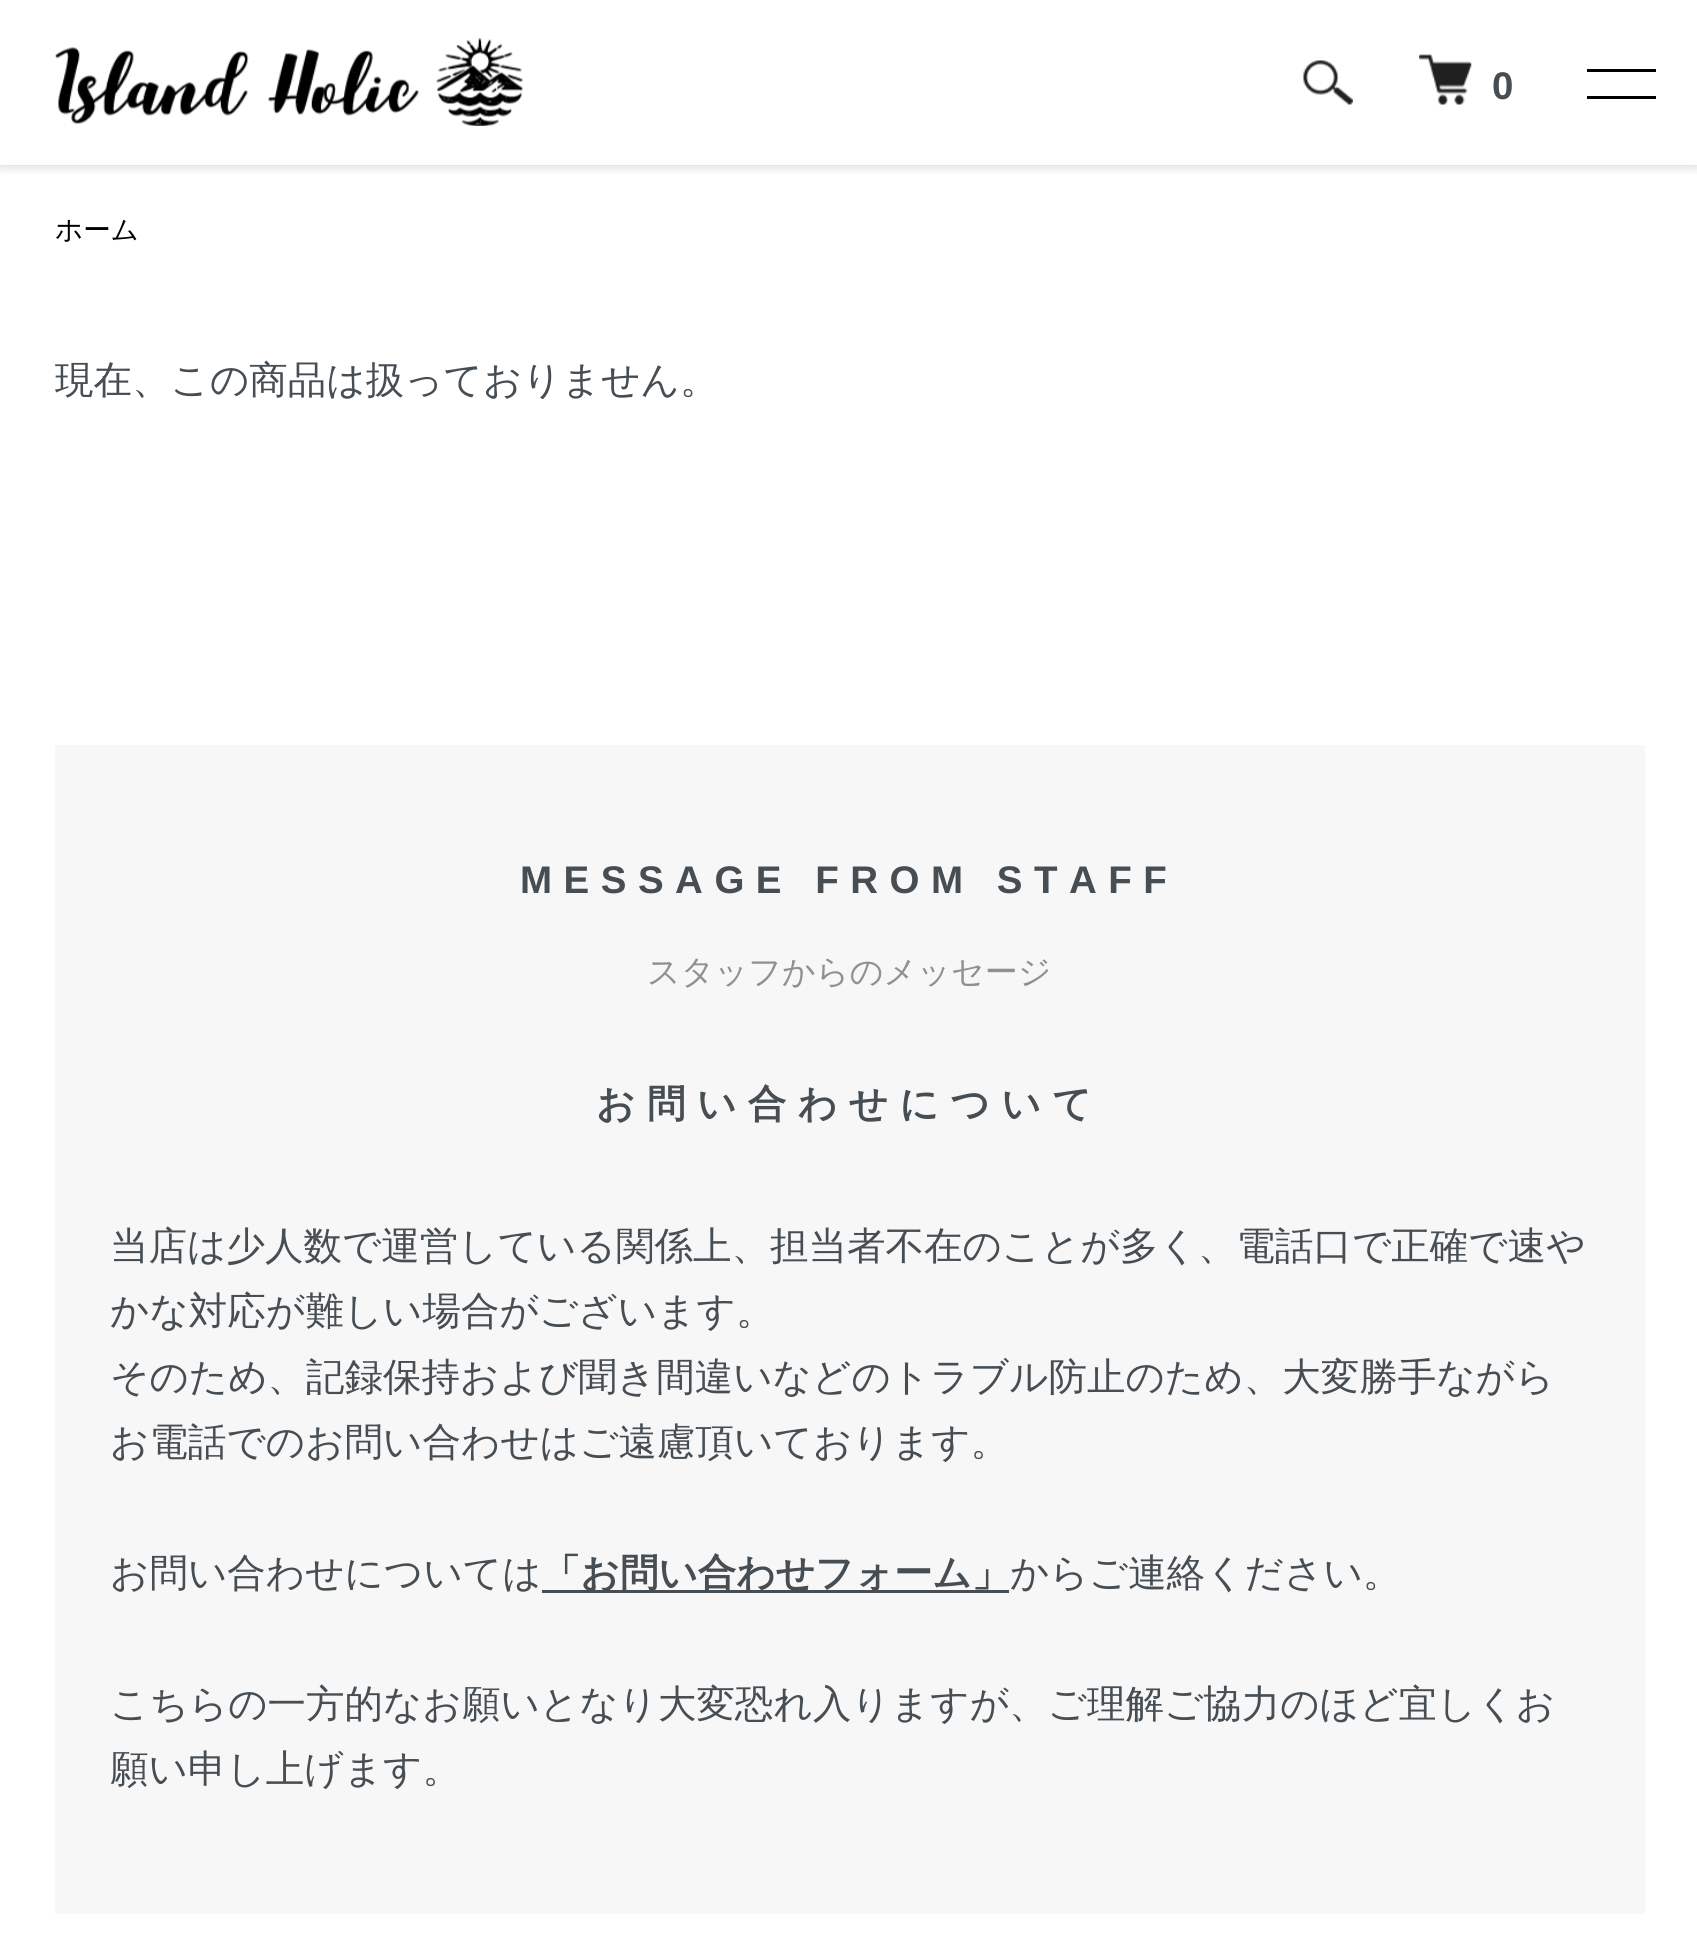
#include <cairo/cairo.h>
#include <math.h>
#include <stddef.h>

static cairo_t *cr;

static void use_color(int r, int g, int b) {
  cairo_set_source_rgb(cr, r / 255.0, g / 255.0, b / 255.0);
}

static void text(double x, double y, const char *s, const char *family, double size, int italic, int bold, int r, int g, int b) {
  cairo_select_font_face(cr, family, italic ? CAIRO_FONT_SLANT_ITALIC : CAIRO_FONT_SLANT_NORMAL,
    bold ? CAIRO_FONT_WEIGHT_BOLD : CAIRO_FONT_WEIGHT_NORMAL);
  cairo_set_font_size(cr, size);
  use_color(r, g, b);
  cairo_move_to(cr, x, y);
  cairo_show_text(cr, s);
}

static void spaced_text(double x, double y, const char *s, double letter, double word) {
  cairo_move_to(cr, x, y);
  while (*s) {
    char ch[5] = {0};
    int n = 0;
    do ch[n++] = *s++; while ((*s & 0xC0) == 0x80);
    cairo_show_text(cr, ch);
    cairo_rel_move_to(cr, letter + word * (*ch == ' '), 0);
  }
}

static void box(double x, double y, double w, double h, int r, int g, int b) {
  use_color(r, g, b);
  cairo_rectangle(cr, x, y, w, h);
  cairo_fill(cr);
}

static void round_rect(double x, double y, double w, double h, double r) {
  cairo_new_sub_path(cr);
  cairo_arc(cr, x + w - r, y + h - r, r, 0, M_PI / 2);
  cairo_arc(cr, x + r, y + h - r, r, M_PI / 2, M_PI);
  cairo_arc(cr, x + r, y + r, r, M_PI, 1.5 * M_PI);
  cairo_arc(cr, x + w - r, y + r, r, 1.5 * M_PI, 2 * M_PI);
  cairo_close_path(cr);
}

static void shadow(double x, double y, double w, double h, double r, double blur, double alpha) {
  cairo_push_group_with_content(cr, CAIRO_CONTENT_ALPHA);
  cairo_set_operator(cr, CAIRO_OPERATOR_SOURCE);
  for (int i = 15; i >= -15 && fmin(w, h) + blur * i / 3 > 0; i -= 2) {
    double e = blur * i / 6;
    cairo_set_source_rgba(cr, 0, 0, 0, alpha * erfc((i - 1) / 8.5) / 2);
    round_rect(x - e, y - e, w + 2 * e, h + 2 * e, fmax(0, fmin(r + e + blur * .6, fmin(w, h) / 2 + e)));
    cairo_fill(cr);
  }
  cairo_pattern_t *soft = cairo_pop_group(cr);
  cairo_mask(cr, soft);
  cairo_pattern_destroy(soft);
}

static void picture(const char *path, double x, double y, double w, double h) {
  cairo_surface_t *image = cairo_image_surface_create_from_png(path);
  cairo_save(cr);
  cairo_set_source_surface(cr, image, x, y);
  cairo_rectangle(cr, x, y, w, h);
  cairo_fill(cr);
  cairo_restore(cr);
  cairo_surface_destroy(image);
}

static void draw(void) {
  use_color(255, 255, 255);
  cairo_paint(cr);
  cairo_save(cr);
  cairo_rectangle(cr, 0, 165, 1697, 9);
  cairo_clip(cr);
  use_color(0, 0, 0);
  shadow(0, 0, 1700, 165, 0, 7, 0.2);
  cairo_restore(cr);
  picture("img_01.png", 55, 38, 468, 88);
  picture("img_02.png", 1303, 60, 50, 45);
  picture("img_03.png", 1419, 54, 53, 51);
  box(1587, 69, 69, 3, 0, 0, 0);
  box(1587, 96, 69, 3, 0, 0, 0);
  box(55, 745, 1590, 1169, 247, 247, 247);
  box(542, 1590, 467, 3, 70, 78, 84);
  text(1492, 99, "0", "Liberation Sans", 38.5, 0, 1, 70, 78, 84);
  text(55, 239, "ホーム", "WenQuanYi Zen Hei Medium", 27.5, 0, 0, 0, 0, 0);
  text(55, 393, "現在、この商品は扱っておりません。", "WenQuanYi Zen Hei Medium", 38.5, 0, 0, 70, 78, 84);
  cairo_select_font_face(cr, "Liberation Sans", CAIRO_FONT_SLANT_NORMAL, CAIRO_FONT_WEIGHT_BOLD);
  spaced_text(520, 893, "MESSAGE FROM STAFF", 11.5, 0);
  text(647, 983, "スタッフからのメッセージ", "WenQuanYi Zen Hei Medium", 33, 0, 0, 144, 144, 144);
  cairo_select_font_face(cr, "WenQuanYi Zen Hei", CAIRO_FONT_SLANT_NORMAL, CAIRO_FONT_WEIGHT_BOLD);
  cairo_set_font_size(cr, 38.5);
  use_color(70, 78, 84);
  spaced_text(596, 1117, "お問い合わせについて", 11.5, 0);
  text(110, 1259, "当店は少人数で運営している関係上、担当者不在のことが多く、電話口で正確で速や", "WenQuanYi Zen Hei Medium", 38.5, 0, 0, 70, 78, 84);
  text(110, 1324, "かな対応が難しい場合がございます。", "WenQuanYi Zen Hei Medium", 38.5, 0, 0, 70, 78, 84);
  text(110, 1390, "そのため、記録保持および聞き間違いなどのトラブル防止のため、大変勝手ながら", "WenQuanYi Zen Hei Medium", 38.5, 0, 0, 70, 78, 84);
  text(110, 1455, "お電話でのお問い合わせはご遠慮頂いております。", "WenQuanYi Zen Hei Medium", 38.5, 0, 0, 70, 78, 84);
  text(110, 1586, "お問い合わせについては", "WenQuanYi Zen Hei Medium", 38.5, 0, 0, 70, 78, 84);
  text(542, 1586, "「お問い合わせフォーム」", "WenQuanYi Zen Hei", 38.5, 0, 1, 70, 78, 84);
  text(1010, 1586, "からご連絡ください。", "WenQuanYi Zen Hei Medium", 38.5, 0, 0, 70, 78, 84);
  text(110, 1717, "こちらの一方的なお願いとなり大変恐れ入りますが、ご理解ご協力のほど宜しくお", "WenQuanYi Zen Hei Medium", 38.5, 0, 0, 70, 78, 84);
  text(110, 1782, "願い申し上げます。", "WenQuanYi Zen Hei Medium", 38.5, 0, 0, 70, 78, 84);
}

int main(void) {
  cairo_surface_t *surface = cairo_image_surface_create(CAIRO_FORMAT_RGB24, 1697, 1944);
  cr = cairo_create(surface);
  cairo_font_options_t *options = cairo_font_options_create();
  cairo_font_options_set_hint_metrics(options, CAIRO_HINT_METRICS_OFF);
  cairo_font_options_set_hint_style(options, CAIRO_HINT_STYLE_NONE);
  cairo_set_font_options(cr, options);
  cairo_set_miter_limit(cr, 4);
  draw();
  cairo_surface_write_to_png(surface, "out.png");
  cairo_font_options_destroy(options);
  cairo_destroy(cr);
  cairo_surface_destroy(surface);
  return 0;
}
